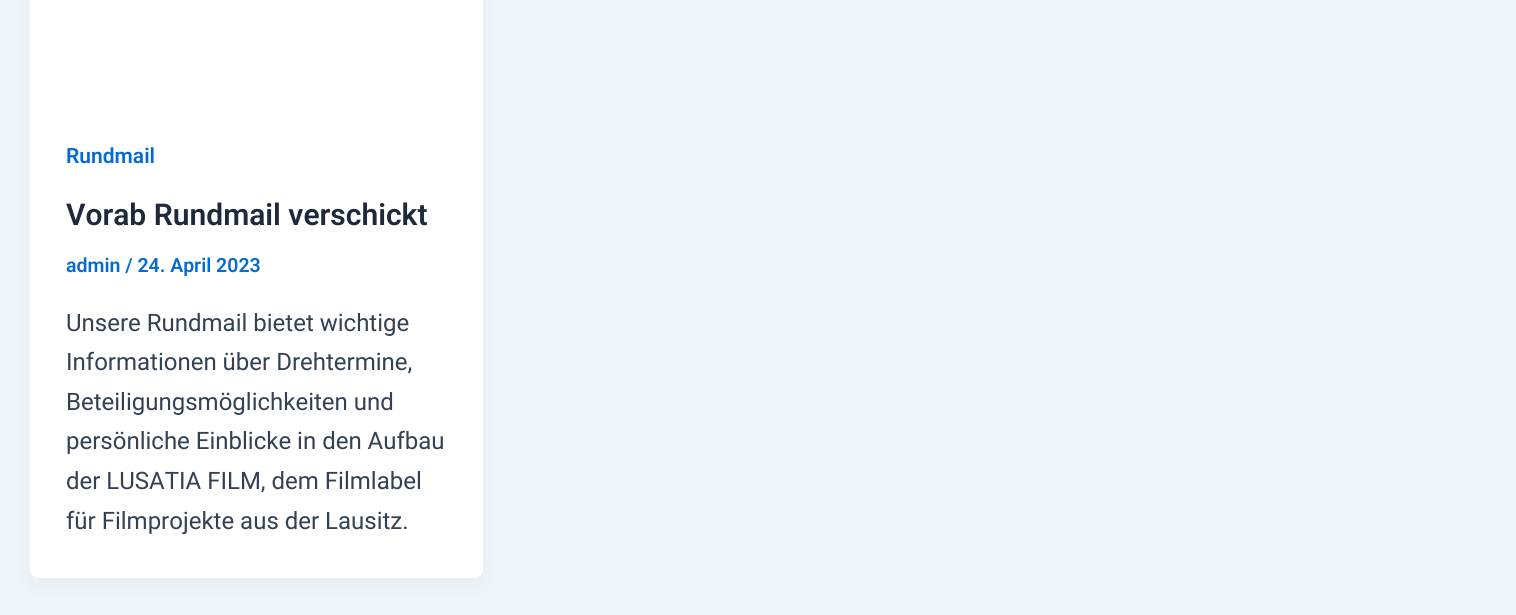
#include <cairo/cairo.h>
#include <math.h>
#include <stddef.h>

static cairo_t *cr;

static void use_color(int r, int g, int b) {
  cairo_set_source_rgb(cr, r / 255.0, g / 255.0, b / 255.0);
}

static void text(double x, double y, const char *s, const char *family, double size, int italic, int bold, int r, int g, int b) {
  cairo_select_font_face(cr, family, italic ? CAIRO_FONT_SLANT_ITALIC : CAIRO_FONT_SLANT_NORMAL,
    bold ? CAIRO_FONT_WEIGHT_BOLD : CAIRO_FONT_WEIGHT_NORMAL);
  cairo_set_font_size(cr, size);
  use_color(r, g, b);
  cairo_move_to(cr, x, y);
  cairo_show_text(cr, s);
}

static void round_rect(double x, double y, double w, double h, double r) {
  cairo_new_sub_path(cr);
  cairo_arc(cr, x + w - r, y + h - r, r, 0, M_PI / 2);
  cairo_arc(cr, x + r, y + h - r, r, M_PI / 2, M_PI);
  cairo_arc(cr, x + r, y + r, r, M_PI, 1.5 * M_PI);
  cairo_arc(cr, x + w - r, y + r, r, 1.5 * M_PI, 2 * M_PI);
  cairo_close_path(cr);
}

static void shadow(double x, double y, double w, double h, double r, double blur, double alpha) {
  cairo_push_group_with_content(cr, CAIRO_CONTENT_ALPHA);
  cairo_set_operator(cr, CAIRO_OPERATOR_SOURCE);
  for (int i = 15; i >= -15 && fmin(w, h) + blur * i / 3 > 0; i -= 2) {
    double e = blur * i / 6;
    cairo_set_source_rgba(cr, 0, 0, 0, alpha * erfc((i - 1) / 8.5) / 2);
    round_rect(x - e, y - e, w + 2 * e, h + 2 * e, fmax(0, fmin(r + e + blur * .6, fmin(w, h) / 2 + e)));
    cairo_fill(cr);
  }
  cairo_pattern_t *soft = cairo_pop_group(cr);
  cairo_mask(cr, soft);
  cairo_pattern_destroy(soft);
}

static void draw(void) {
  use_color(240, 245, 250);
  cairo_paint(cr);
  use_color(16, 24, 40);
  shadow(33, -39, 447, 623, 6, 11, 0.05);
  use_color(255, 255, 255);
  round_rect(30, -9, 453, 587, 9);
  cairo_fill(cr);
  text(66, 163, "Rundmail", "Roboto SemiBold", 21, 0, 0, 4, 107, 210);
  text(66, 225, "Vorab Rundmail verschickt", "Roboto SemiBold", 30, 0, 0, 30, 41, 59);
  text(66, 272, "admin / 24. April 2023", "Roboto SemiBold", 19.5, 0, 0, 4, 107, 210);
  text(66, 331, "Unsere Rundmail bietet wichtige", "Roboto", 24, 0, 0, 51, 65, 85);
  text(66, 370, "Informationen über Drehtermine,", "Roboto", 24, 0, 0, 51, 65, 85);
  text(66, 410, "Beteiligungsmöglichkeiten und", "Roboto", 24, 0, 0, 51, 65, 85);
  text(66, 449, "persönliche Einblicke in den Aufbau", "Roboto", 24, 0, 0, 51, 65, 85);
  text(66, 489, "der LUSATIA FILM, dem Filmlabel", "Roboto", 24, 0, 0, 51, 65, 85);
  text(66, 529, "für Filmprojekte aus der Lausitz.", "Roboto", 24, 0, 0, 51, 65, 85);
}

int main(void) {
  cairo_surface_t *surface = cairo_image_surface_create(CAIRO_FORMAT_RGB24, 1516, 615);
  cr = cairo_create(surface);
  cairo_font_options_t *options = cairo_font_options_create();
  cairo_font_options_set_hint_metrics(options, CAIRO_HINT_METRICS_OFF);
  cairo_font_options_set_hint_style(options, CAIRO_HINT_STYLE_NONE);
  cairo_set_font_options(cr, options);
  cairo_set_miter_limit(cr, 4);
  draw();
  cairo_surface_write_to_png(surface, "out.png");
  cairo_font_options_destroy(options);
  cairo_destroy(cr);
  cairo_surface_destroy(surface);
  return 0;
}
